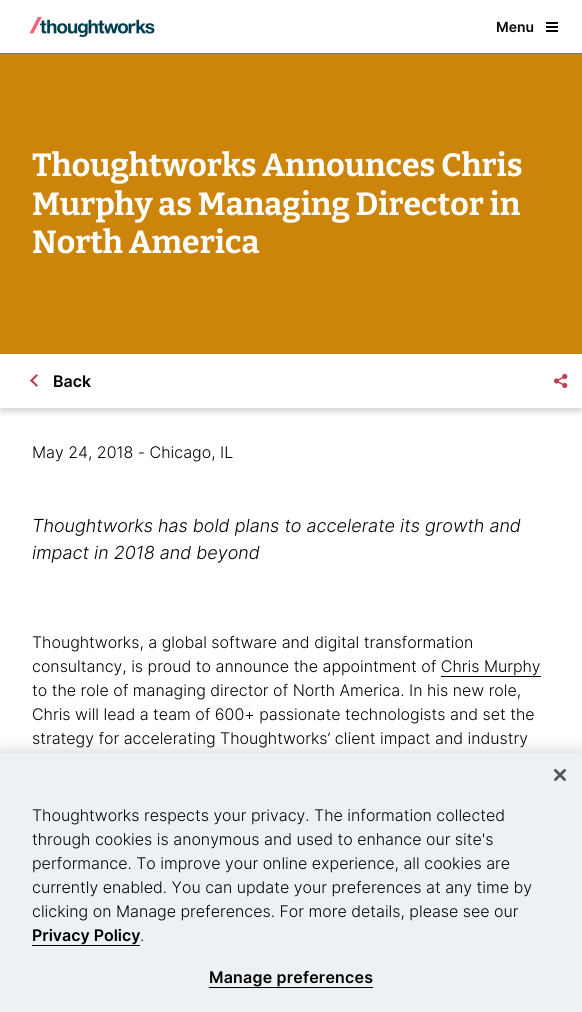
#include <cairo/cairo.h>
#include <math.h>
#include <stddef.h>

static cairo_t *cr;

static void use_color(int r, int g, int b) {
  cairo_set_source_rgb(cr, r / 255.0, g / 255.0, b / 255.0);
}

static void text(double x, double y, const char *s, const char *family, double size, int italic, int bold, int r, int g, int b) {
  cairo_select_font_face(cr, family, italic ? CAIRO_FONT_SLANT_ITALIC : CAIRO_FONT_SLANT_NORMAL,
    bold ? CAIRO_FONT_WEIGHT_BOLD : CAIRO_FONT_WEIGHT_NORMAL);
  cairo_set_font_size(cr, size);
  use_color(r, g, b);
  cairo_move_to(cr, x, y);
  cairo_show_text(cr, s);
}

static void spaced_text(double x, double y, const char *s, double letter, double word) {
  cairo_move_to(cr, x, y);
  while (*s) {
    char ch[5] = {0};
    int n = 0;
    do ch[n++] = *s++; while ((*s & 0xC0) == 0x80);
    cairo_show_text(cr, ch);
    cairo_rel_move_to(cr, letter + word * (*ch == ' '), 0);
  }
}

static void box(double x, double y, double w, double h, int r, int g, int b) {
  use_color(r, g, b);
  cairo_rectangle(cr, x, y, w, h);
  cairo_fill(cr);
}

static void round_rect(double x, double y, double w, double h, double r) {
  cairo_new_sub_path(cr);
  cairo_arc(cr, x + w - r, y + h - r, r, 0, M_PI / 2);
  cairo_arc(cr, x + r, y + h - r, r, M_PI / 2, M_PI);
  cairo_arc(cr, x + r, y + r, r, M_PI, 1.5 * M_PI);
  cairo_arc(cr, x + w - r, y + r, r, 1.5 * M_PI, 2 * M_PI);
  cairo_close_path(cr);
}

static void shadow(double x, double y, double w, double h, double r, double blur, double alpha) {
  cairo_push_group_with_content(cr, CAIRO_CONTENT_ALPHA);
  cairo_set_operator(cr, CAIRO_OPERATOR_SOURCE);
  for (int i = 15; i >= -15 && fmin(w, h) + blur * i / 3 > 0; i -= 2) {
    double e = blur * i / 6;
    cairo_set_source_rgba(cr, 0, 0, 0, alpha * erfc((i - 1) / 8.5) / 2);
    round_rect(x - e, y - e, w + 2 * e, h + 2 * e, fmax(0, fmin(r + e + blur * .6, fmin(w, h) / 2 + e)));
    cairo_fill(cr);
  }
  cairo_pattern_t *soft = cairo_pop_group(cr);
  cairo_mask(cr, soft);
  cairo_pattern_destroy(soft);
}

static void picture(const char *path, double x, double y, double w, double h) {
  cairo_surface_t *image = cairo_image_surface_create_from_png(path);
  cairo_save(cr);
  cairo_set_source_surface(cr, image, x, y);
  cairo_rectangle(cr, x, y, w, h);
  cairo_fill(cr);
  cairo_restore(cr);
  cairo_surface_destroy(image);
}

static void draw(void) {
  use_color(255, 255, 255);
  cairo_paint(cr);
  box(0, 53, 582, 1, 112, 112, 112);
  picture("img_01.png", 29, 17, 126, 20);
  picture("img_02.png", 546, 22, 12, 10);
  cairo_save(cr);
  cairo_rectangle(cr, 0, 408, 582, 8);
  cairo_clip(cr);
  use_color(0, 0, 0);
  shadow(1, 359, 580, 52, 0, 4, 0.2);
  cairo_restore(cr);
  box(0, 54, 582, 300, 204, 132, 11);
  use_color(189, 66, 87);
  cairo_new_path(cr);
  cairo_move_to(cr, 36.5, 387);
  cairo_line_to(cr, 30, 380.5);
  cairo_line_to(cr, 31.5, 379);
  cairo_line_to(cr, 38, 385.5);
  cairo_close_path(cr);
  cairo_fill(cr);
  cairo_new_path(cr);
  cairo_move_to(cr, 31.5, 382);
  cairo_line_to(cr, 30, 380.5);
  cairo_line_to(cr, 36.5, 374);
  cairo_line_to(cr, 38, 375.5);
  cairo_close_path(cr);
  cairo_fill(cr);
  picture("img_03.png", 553, 373, 15, 16);
  box(441, 676, 100, 1, 0, 0, 0);
  use_color(0, 0, 0);
  shadow(0, 753, 582, 259, 0, 9, 0.2);
  box(0, 753, 582, 259, 237, 241, 243);
  picture("img_04.png", 554, 769, 12, 12);
  box(32, 945, 108, 1, 0, 0, 0);
  box(209, 987, 164, 1, 0, 0, 0);
  text(496, 32, "Menu", "Inter SemiBold", 14, 0, 0, 0, 0, 0);
  text(32, 176, "Thoughtworks Announces Chris", "Bitter Thin", 32, 0, 0, 255, 255, 255);
  text(32, 215, "Murphy as Managing Director in", "Bitter Thin", 32, 0, 0, 255, 255, 255);
  text(32, 253, "North America", "Bitter Thin", 32, 0, 0, 255, 255, 255);
  text(53, 387, "Back", "Inter SemiBold", 16, 0, 0, 0, 0, 0);
  text(32, 458, "May 24, 2018 - Chicago, IL", "Inter Light", 16, 0, 0, 0, 0, 0);
  text(32, 532, "Thoughtworks has bold plans to accelerate its growth and", "Inter Light", 18, 1, 0, 0, 0, 0);
  text(32, 559, "impact in 2018 and beyond", "Inter Light", 18, 1, 0, 0, 0, 0);
  text(32, 648, "Thoughtworks, a global software and digital transformation", "Inter Light", 16, 0, 0, 0, 0, 0);
  text(32, 672, "consultancy, is proud to announce the appointment of Chris Murphy", "Inter Light", 16, 0, 0, 0, 0, 0);
  text(32, 696, "to the role of managing director of North America. In his new role,", "Inter Light", 16, 0, 0, 0, 0, 0);
  text(32, 720, "Chris will lead a team of 600+ passionate technologists and set the", "Inter Light", 16, 0, 0, 0, 0, 0);
  text(32, 744, "strategy for accelerating Thoughtworks’ client impact and industry", "Inter Light", 16, 0, 0, 0, 0, 0);
  text(32, 821, "Thoughtworks respects your privacy. The information collected", "Inter Light", 16, 0, 0, 0, 0, 0);
  text(32, 845, "through cookies is anonymous and used to enhance our site's", "Inter Light", 16, 0, 0, 0, 0, 0);
  text(32, 869, "performance. To improve your online experience, all cookies are", "Inter Light", 16, 0, 0, 0, 0, 0);
  text(32, 893, "currently enabled. You can update your preferences at any time by", "Inter Light", 16, 0, 0, 0, 0, 0);
  text(32, 917, "clicking on Manage preferences. For more details, please see our", "Inter Light", 16, 0, 0, 0, 0, 0);
  text(32, 941, "Privacy Policy", "Inter SemiBold", 16, 0, 0, 0, 0, 0);
  text(140, 941, ".", "Inter Light", 16, 0, 0, 0, 0, 0);
  cairo_select_font_face(cr, "Inter SemiBold", CAIRO_FONT_SLANT_NORMAL, CAIRO_FONT_WEIGHT_NORMAL);
  spaced_text(209, 983, "Manage preferences", 0.2, 0);
}

int main(void) {
  cairo_surface_t *surface = cairo_image_surface_create(CAIRO_FORMAT_RGB24, 582, 1012);
  cr = cairo_create(surface);
  cairo_font_options_t *options = cairo_font_options_create();
  cairo_font_options_set_hint_metrics(options, CAIRO_HINT_METRICS_OFF);
  cairo_font_options_set_hint_style(options, CAIRO_HINT_STYLE_NONE);
  cairo_set_font_options(cr, options);
  cairo_set_miter_limit(cr, 4);
  draw();
  cairo_surface_write_to_png(surface, "out.png");
  cairo_font_options_destroy(options);
  cairo_destroy(cr);
  cairo_surface_destroy(surface);
  return 0;
}
